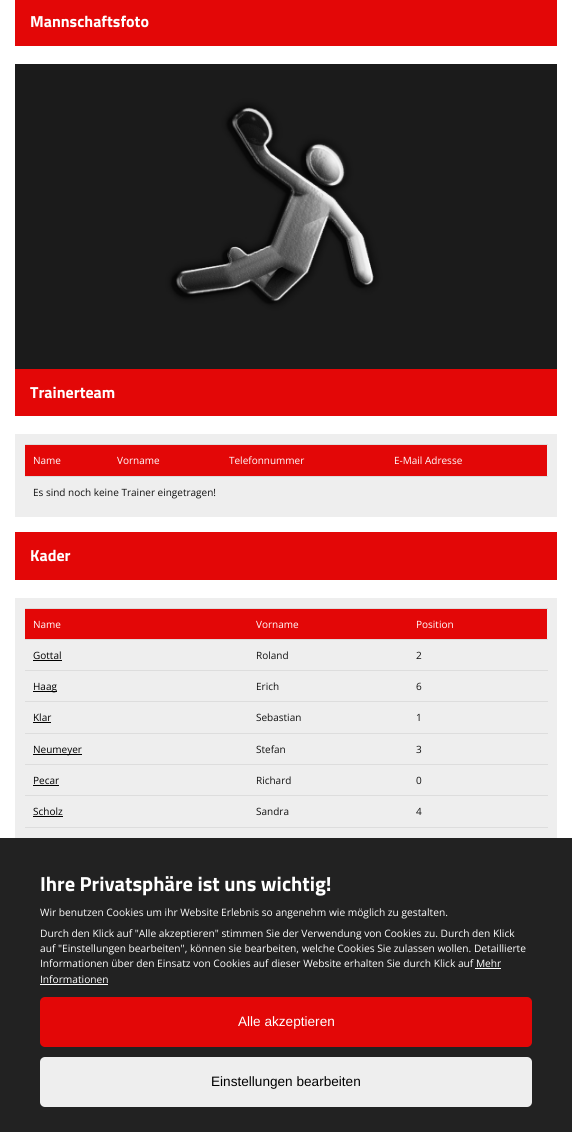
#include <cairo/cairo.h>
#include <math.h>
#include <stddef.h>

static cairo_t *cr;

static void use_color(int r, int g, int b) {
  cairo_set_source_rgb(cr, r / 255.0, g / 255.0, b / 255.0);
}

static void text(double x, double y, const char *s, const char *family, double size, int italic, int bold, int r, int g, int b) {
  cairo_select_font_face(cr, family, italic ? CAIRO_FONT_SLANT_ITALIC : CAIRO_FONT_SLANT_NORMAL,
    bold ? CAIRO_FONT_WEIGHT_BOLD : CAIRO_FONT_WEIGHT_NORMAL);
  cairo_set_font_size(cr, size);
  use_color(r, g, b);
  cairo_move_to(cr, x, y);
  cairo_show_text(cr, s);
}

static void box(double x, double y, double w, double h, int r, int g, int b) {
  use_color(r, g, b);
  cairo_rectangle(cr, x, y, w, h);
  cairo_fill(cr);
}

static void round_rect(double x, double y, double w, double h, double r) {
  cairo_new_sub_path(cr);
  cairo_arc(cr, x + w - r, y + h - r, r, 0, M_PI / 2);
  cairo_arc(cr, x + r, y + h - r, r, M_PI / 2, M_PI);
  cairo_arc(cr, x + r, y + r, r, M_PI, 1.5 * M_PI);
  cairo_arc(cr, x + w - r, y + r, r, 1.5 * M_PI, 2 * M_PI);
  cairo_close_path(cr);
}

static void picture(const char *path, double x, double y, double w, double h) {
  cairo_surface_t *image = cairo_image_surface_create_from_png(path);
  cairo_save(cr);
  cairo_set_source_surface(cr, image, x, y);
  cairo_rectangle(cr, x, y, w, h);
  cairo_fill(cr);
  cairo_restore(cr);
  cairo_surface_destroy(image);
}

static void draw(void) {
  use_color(255, 255, 255);
  cairo_paint(cr);
  box(15, 0, 542, 46, 227, 7, 7);
  picture("img_01.png", 15, 64, 542, 305);
  box(15, 369, 542, 47, 227, 7, 7);
  box(15, 434, 542, 83, 238, 238, 238);
  box(25, 445, 522, 31, 227, 7, 7);
  box(25, 444, 523, 1, 221, 221, 221);
  box(25, 476, 523, 1, 221, 221, 221);
  box(15, 532, 542, 48, 227, 7, 7);
  box(15, 598, 542, 240, 238, 238, 238);
  box(25, 609, 522, 30, 227, 7, 7);
  box(25, 608, 523, 1, 221, 221, 221);
  box(33, 660, 29, 1, 0, 0, 0);
  box(25, 639, 523, 1, 221, 221, 221);
  box(33, 691, 24, 1, 0, 0, 0);
  box(25, 670, 523, 1, 221, 221, 221);
  box(33, 722, 18, 1, 0, 0, 0);
  box(25, 701, 523, 1, 221, 221, 221);
  box(33, 754, 49, 1, 0, 0, 0);
  box(25, 733, 523, 1, 221, 221, 221);
  box(33, 785, 26, 1, 0, 0, 0);
  box(25, 764, 523, 1, 221, 221, 221);
  box(33, 816, 30, 1, 0, 0, 0);
  box(25, 795, 523, 1, 221, 221, 221);
  box(25, 827, 523, 1, 221, 221, 221);
  box(0, 838, 572, 294, 34, 34, 34);
  box(475, 968, 26, 1, 255, 255, 255);
  box(40, 984, 68, 1, 255, 255, 255);
  use_color(227, 7, 7);
  round_rect(40, 997, 492, 50, 5);
  cairo_fill(cr);
  use_color(238, 238, 238);
  round_rect(40, 1057, 492, 50, 5);
  cairo_fill(cr);
  text(30, 27, "Mannschaftsfoto", "Titillium Web", 16, 0, 1, 255, 255, 255);
  text(30, 398, "Trainerteam", "Titillium Web", 16, 0, 1, 255, 255, 255);
  text(33, 464, "Name", "Open Sans", 10, 0, 0, 255, 255, 255);
  text(117, 464, "Vorname", "Open Sans", 10, 0, 0, 255, 255, 255);
  text(229, 464, "Telefonnummer", "Open Sans", 10, 0, 0, 255, 255, 255);
  text(394, 464, "E-Mail Adresse", "Open Sans", 10, 0, 0, 255, 255, 255);
  text(33, 496, "Es sind noch keine Trainer eingetragen!", "Open Sans", 10, 0, 0, 17, 17, 17);
  text(30, 561, "Kader", "Titillium Web", 16, 0, 1, 255, 255, 255);
  text(33, 628, "Name", "Open Sans", 10, 0, 0, 255, 255, 255);
  text(256, 628, "Vorname", "Open Sans", 10, 0, 0, 255, 255, 255);
  text(416, 628, "Position", "Open Sans", 10, 0, 0, 255, 255, 255);
  text(33, 659, "Gottal", "Open Sans", 10, 0, 0, 0, 0, 0);
  text(256, 659, "Roland", "Open Sans", 10, 0, 0, 17, 17, 17);
  text(416, 659, "2", "Open Sans", 10, 0, 0, 17, 17, 17);
  text(33, 690, "Haag", "Open Sans", 10, 0, 0, 0, 0, 0);
  text(256, 690, "Erich", "Open Sans", 10, 0, 0, 17, 17, 17);
  text(416, 690, "6", "Open Sans", 10, 0, 0, 17, 17, 17);
  text(33, 721, "Klar", "Open Sans", 10, 0, 0, 0, 0, 0);
  text(256, 721, "Sebastian", "Open Sans", 10, 0, 0, 17, 17, 17);
  text(416, 721, "1", "Open Sans", 10, 0, 0, 17, 17, 17);
  text(33, 753, "Neumeyer", "Open Sans", 10, 0, 0, 0, 0, 0);
  text(256, 753, "Stefan", "Open Sans", 10, 0, 0, 17, 17, 17);
  text(416, 753, "3", "Open Sans", 10, 0, 0, 17, 17, 17);
  text(33, 784, "Pecar", "Open Sans", 10, 0, 0, 0, 0, 0);
  text(256, 784, "Richard", "Open Sans", 10, 0, 0, 17, 17, 17);
  text(416, 784, "0", "Open Sans", 10, 0, 0, 17, 17, 17);
  text(33, 815, "Scholz", "Open Sans", 10, 0, 0, 0, 0, 0);
  text(256, 815, "Sandra", "Open Sans", 10, 0, 0, 17, 17, 17);
  text(416, 815, "4", "Open Sans", 10, 0, 0, 17, 17, 17);
  text(40, 891, "Ihre Privatsphäre ist uns wichtig!", "Titillium Web", 20.4, 0, 1, 255, 255, 255);
  text(40, 916, "Wir benutzen Cookies um ihr Website Erlebnis so angenehm wie möglich zu gestalten.", "Open Sans", 10.2, 0, 0, 255, 255, 255);
  text(40, 937, "Durch den Klick auf \"Alle akzeptieren\" stimmen Sie der Verwendung von Cookies zu. Durch den Klick", "Open Sans", 10.2, 0, 0, 255, 255, 255);
  text(40, 952, "auf \"Einstellungen bearbeiten\", können sie bearbeiten, welche Cookies Sie zulassen wollen. Detaillierte", "Open Sans", 10.2, 0, 0, 255, 255, 255);
  text(40, 967, "Informationen über den Einsatz von Cookies auf dieser Website erhalten Sie durch Klick auf Mehr", "Open Sans", 10.2, 0, 0, 255, 255, 255);
  text(40, 983, "Informationen", "Open Sans", 10.2, 0, 0, 255, 255, 255);
  text(238, 1026, "Alle akzeptieren", "Liberation Sans", 13.6, 0, 0, 255, 255, 255);
  text(211, 1086, "Einstellungen bearbeiten", "Liberation Sans", 13.6, 0, 0, 0, 0, 0);
}

int main(void) {
  cairo_surface_t *surface = cairo_image_surface_create(CAIRO_FORMAT_RGB24, 572, 1132);
  cr = cairo_create(surface);
  cairo_font_options_t *options = cairo_font_options_create();
  cairo_font_options_set_hint_metrics(options, CAIRO_HINT_METRICS_OFF);
  cairo_font_options_set_hint_style(options, CAIRO_HINT_STYLE_NONE);
  cairo_set_font_options(cr, options);
  cairo_set_miter_limit(cr, 4);
  draw();
  cairo_surface_write_to_png(surface, "out.png");
  cairo_font_options_destroy(options);
  cairo_destroy(cr);
  cairo_surface_destroy(surface);
  return 0;
}
